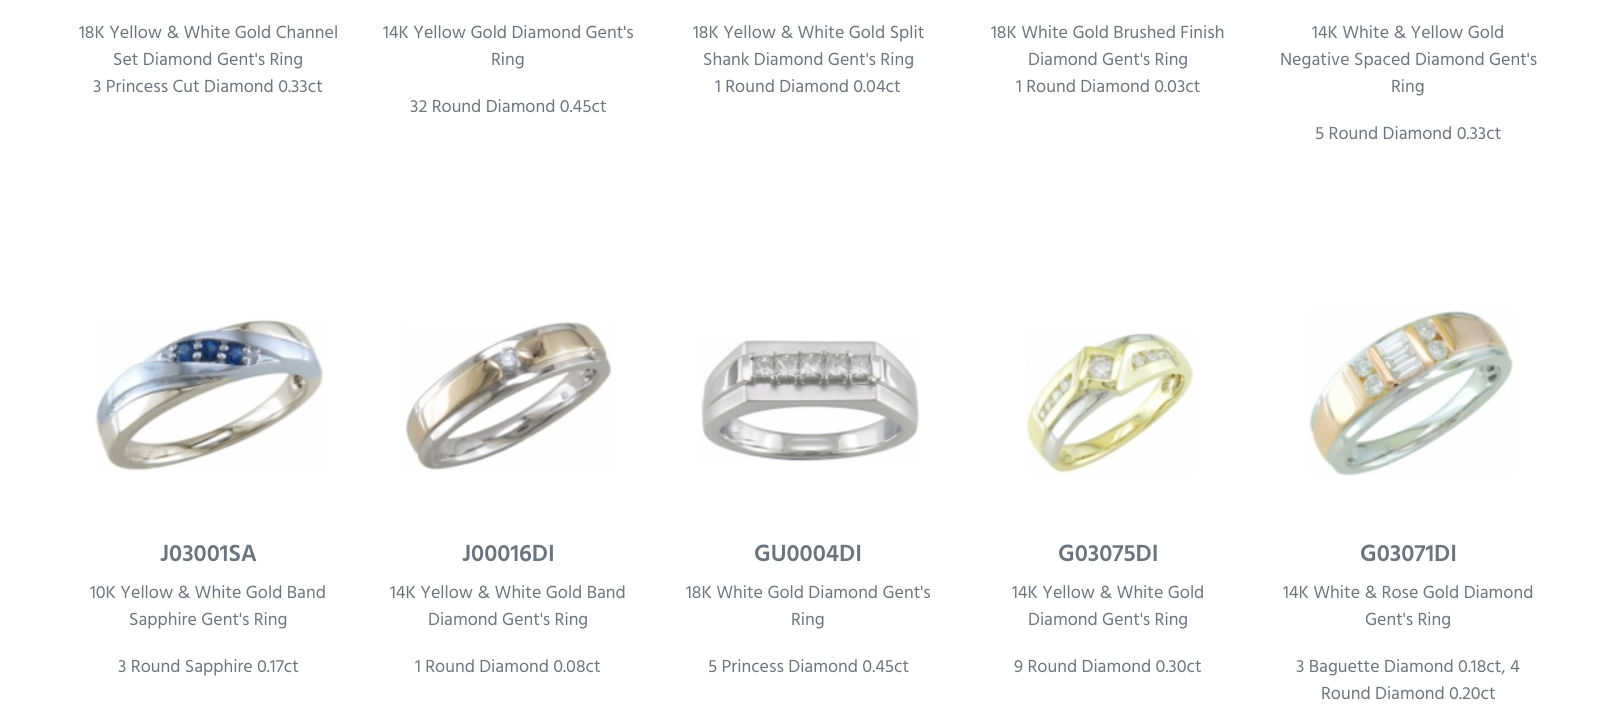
#include <cairo/cairo.h>
#include <math.h>
#include <stddef.h>

static cairo_t *cr;

static void use_color(int r, int g, int b) {
  cairo_set_source_rgb(cr, r / 255.0, g / 255.0, b / 255.0);
}

static void text(double x, double y, const char *s, const char *family, double size, int italic, int bold, int r, int g, int b) {
  cairo_select_font_face(cr, family, italic ? CAIRO_FONT_SLANT_ITALIC : CAIRO_FONT_SLANT_NORMAL,
    bold ? CAIRO_FONT_WEIGHT_BOLD : CAIRO_FONT_WEIGHT_NORMAL);
  cairo_set_font_size(cr, size);
  use_color(r, g, b);
  cairo_move_to(cr, x, y);
  cairo_show_text(cr, s);
}

static void picture(const char *path, double x, double y, double w, double h) {
  cairo_surface_t *image = cairo_image_surface_create_from_png(path);
  cairo_save(cr);
  cairo_set_source_surface(cr, image, x, y);
  cairo_rectangle(cr, x, y, w, h);
  cairo_fill(cr);
  cairo_restore(cr);
  cairo_surface_destroy(image);
}

static void draw(void) {
  use_color(255, 255, 255);
  cairo_paint(cr);
  picture("img_01.png", 95, 319, 229, 153);
  picture("img_02.png", 405, 322, 207, 149);
  picture("img_03.png", 700, 340, 220, 122);
  picture("img_04.png", 1025, 333, 170, 141);
  picture("img_05.png", 1309, 310, 205, 166);
  text(79, 38, "18K Yellow & White Gold Channel", "Hind", 18, 0, 0, 108, 117, 125);
  text(113, 65, "Set Diamond Gent's Ring", "Hind", 18, 0, 0, 108, 117, 125);
  text(93, 92, "3 Princess Cut Diamond 0.33ct", "Hind", 18, 0, 0, 108, 117, 125);
  text(383, 38, "14K Yellow Gold Diamond Gent's", "Hind", 18, 0, 0, 108, 117, 125);
  text(491, 65, "Ring", "Hind", 18, 0, 0, 108, 117, 125);
  text(410, 112, "32 Round Diamond 0.45ct", "Hind", 18, 0, 0, 108, 117, 125);
  text(693, 38, "18K Yellow & White Gold Split", "Hind", 18, 0, 0, 108, 117, 125);
  text(703, 65, "Shank Diamond Gent's Ring", "Hind", 18, 0, 0, 108, 117, 125);
  text(715, 92, "1 Round Diamond 0.04ct", "Hind", 18, 0, 0, 108, 117, 125);
  text(991, 38, "18K White Gold Brushed Finish", "Hind", 18, 0, 0, 108, 117, 125);
  text(1028, 65, "Diamond Gent's Ring", "Hind", 18, 0, 0, 108, 117, 125);
  text(1016, 92, "1 Round Diamond 0.03ct", "Hind", 18, 0, 0, 108, 117, 125);
  text(1312, 38, "14K White & Yellow Gold", "Hind", 18, 0, 0, 108, 117, 125);
  text(1280, 65, "Negative Spaced Diamond Gent's", "Hind", 18, 0, 0, 108, 117, 125);
  text(1391, 92, "Ring", "Hind", 18, 0, 0, 108, 117, 125);
  text(1315, 139, "5 Round Diamond 0.33ct", "Hind", 18, 0, 0, 108, 117, 125);
  text(160, 561, "J03001SA", "Hind SemiBold", 24, 0, 0, 108, 117, 125);
  text(90, 598, "10K Yellow & White Gold Band", "Hind", 18, 0, 0, 108, 117, 125);
  text(129, 625, "Sapphire Gent's Ring", "Hind", 18, 0, 0, 108, 117, 125);
  text(118, 672, "3 Round Sapphire 0.17ct", "Hind", 18, 0, 0, 108, 117, 125);
  text(462, 561, "J00016DI", "Hind SemiBold", 24, 0, 0, 108, 117, 125);
  text(390, 598, "14K Yellow & White Gold Band", "Hind", 18, 0, 0, 108, 117, 125);
  text(428, 625, "Diamond Gent's Ring", "Hind", 18, 0, 0, 108, 117, 125);
  text(415, 672, "1 Round Diamond 0.08ct", "Hind", 18, 0, 0, 108, 117, 125);
  text(754, 561, "GU0004DI", "Hind SemiBold", 24, 0, 0, 108, 117, 125);
  text(686, 598, "18K White Gold Diamond Gent's", "Hind", 18, 0, 0, 108, 117, 125);
  text(791, 625, "Ring", "Hind", 18, 0, 0, 108, 117, 125);
  text(708, 672, "5 Princess Diamond 0.45ct", "Hind", 18, 0, 0, 108, 117, 125);
  text(1058, 561, "G03075DI", "Hind SemiBold", 24, 0, 0, 108, 117, 125);
  text(1012, 598, "14K Yellow & White Gold", "Hind", 18, 0, 0, 108, 117, 125);
  text(1028, 625, "Diamond Gent's Ring", "Hind", 18, 0, 0, 108, 117, 125);
  text(1014, 672, "9 Round Diamond 0.30ct", "Hind", 18, 0, 0, 108, 117, 125);
  text(1360, 561, "G03071DI", "Hind SemiBold", 24, 0, 0, 108, 117, 125);
  text(1283, 598, "14K White & Rose Gold Diamond", "Hind", 18, 0, 0, 108, 117, 125);
  text(1365, 625, "Gent's Ring", "Hind", 18, 0, 0, 108, 117, 125);
  text(1296, 672, "3 Baguette Diamond 0.18ct, 4", "Hind", 18, 0, 0, 108, 117, 125);
  text(1321, 699, "Round Diamond 0.20ct", "Hind", 18, 0, 0, 108, 117, 125);
}

int main(void) {
  cairo_surface_t *surface = cairo_image_surface_create(CAIRO_FORMAT_RGB24, 1616, 727);
  cr = cairo_create(surface);
  cairo_font_options_t *options = cairo_font_options_create();
  cairo_font_options_set_hint_metrics(options, CAIRO_HINT_METRICS_OFF);
  cairo_font_options_set_hint_style(options, CAIRO_HINT_STYLE_NONE);
  cairo_set_font_options(cr, options);
  cairo_set_miter_limit(cr, 4);
  draw();
  cairo_surface_write_to_png(surface, "out.png");
  cairo_font_options_destroy(options);
  cairo_destroy(cr);
  cairo_surface_destroy(surface);
  return 0;
}
